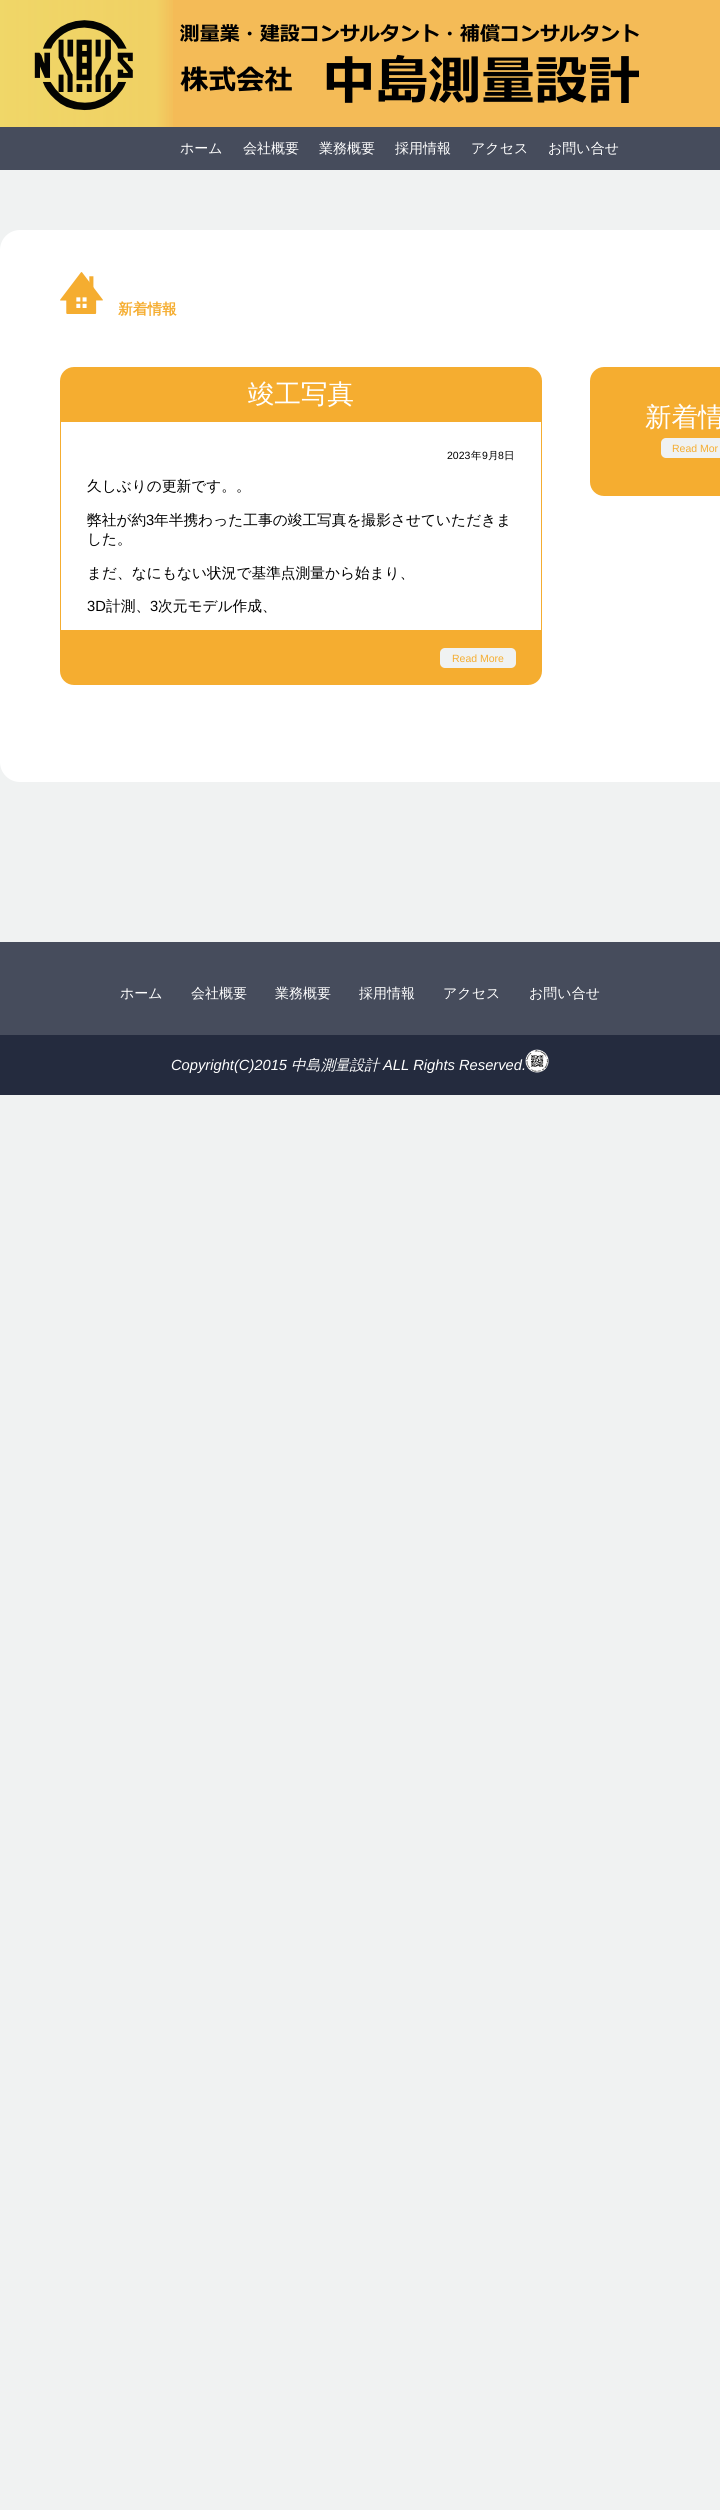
#include <cairo/cairo.h>
#include <math.h>
#include <stddef.h>

static cairo_t *cr;

static void use_color(int r, int g, int b) {
  cairo_set_source_rgb(cr, r / 255.0, g / 255.0, b / 255.0);
}

static void text(double x, double y, const char *s, const char *family, double size, int italic, int bold, int r, int g, int b) {
  cairo_select_font_face(cr, family, italic ? CAIRO_FONT_SLANT_ITALIC : CAIRO_FONT_SLANT_NORMAL,
    bold ? CAIRO_FONT_WEIGHT_BOLD : CAIRO_FONT_WEIGHT_NORMAL);
  cairo_set_font_size(cr, size);
  use_color(r, g, b);
  cairo_move_to(cr, x, y);
  cairo_show_text(cr, s);
}

static void box(double x, double y, double w, double h, int r, int g, int b) {
  use_color(r, g, b);
  cairo_rectangle(cr, x, y, w, h);
  cairo_fill(cr);
}

static void round_rect(double x, double y, double w, double h, double r) {
  cairo_new_sub_path(cr);
  cairo_arc(cr, x + w - r, y + h - r, r, 0, M_PI / 2);
  cairo_arc(cr, x + r, y + h - r, r, M_PI / 2, M_PI);
  cairo_arc(cr, x + r, y + r, r, M_PI, 1.5 * M_PI);
  cairo_arc(cr, x + w - r, y + r, r, 1.5 * M_PI, 2 * M_PI);
  cairo_close_path(cr);
}

static void picture(const char *path, double x, double y, double w, double h) {
  cairo_surface_t *image = cairo_image_surface_create_from_png(path);
  cairo_save(cr);
  cairo_set_source_surface(cr, image, x, y);
  cairo_rectangle(cr, x, y, w, h);
  cairo_fill(cr);
  cairo_restore(cr);
  cairo_surface_destroy(image);
}

static void draw(void) {
  use_color(240, 242, 242);
  cairo_paint(cr);
  box(4, 0, 716, 127, 244, 187, 87);
  picture("img_01.png", 0, 0, 173, 127);
  picture("img_02.png", 180, 24, 459, 79);
  box(0, 127, 720, 43, 70, 76, 92);
  use_color(255, 255, 255);
  round_rect(0, 230, 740, 552, 20);
  cairo_fill(cr);
  picture("img_03.png", 60, 272, 43, 42);
  use_color(245, 173, 48);
  round_rect(60, 367, 482, 318, 14);
  cairo_fill(cr);
  box(61, 422, 480, 208, 255, 255, 255);
  use_color(240, 242, 242);
  round_rect(440, 648, 76, 20, 5);
  cairo_fill(cr);
  use_color(245, 173, 48);
  round_rect(590, 367, 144, 129, 14);
  cairo_fill(cr);
  use_color(240, 242, 242);
  round_rect(661, 438, 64, 20, 5);
  cairo_fill(cr);
  box(0, 942, 720, 93, 70, 76, 92);
  box(0, 1035, 720, 60, 36, 43, 62);
  picture("img_04.png", 525, 1049, 24, 24);
  text(180, 153, "ホーム", "WenQuanYi Zen Hei Medium", 14, 0, 0, 255, 255, 255);
  text(243, 153, "会社概要", "WenQuanYi Zen Hei Medium", 14, 0, 0, 255, 255, 255);
  text(319, 153, "業務概要", "WenQuanYi Zen Hei Medium", 14, 0, 0, 255, 255, 255);
  text(395, 153, "採用情報", "WenQuanYi Zen Hei Medium", 14, 0, 0, 255, 255, 255);
  text(471, 153, "アクセス", "WenQuanYi Zen Hei Medium", 14, 0, 0, 255, 255, 255);
  text(548, 153, "お問い合せ", "WenQuanYi Zen Hei Medium", 14, 0, 0, 255, 255, 255);
  text(118, 314, "新着情報", "WenQuanYi Zen Hei", 14.7, 0, 1, 245, 173, 48);
  text(248, 403, "竣工写真", "WenQuanYi Zen Hei Medium", 26.5, 0, 0, 255, 255, 255);
  text(447, 459, "2023", "Liberation Sans", 10.5, 0, 0, 0, 0, 0);
  text(471, 459, "年", "WenQuanYi Zen Hei Medium", 10.5, 0, 0, 0, 0, 0);
  text(482, 459, "9", "Liberation Sans", 10.5, 0, 0, 0, 0, 0);
  text(488, 459, "月", "WenQuanYi Zen Hei Medium", 10.5, 0, 0, 0, 0, 0);
  text(498, 459, "8", "Liberation Sans", 10.5, 0, 0, 0, 0, 0);
  text(504, 459, "日", "WenQuanYi Zen Hei Medium", 10.5, 0, 0, 0, 0, 0);
  text(87, 491, "久しぶりの更新です。。", "WenQuanYi Zen Hei Medium", 14.7, 0, 0, 0, 0, 0);
  text(87, 525, "弊社が約", "WenQuanYi Zen Hei Medium", 14.7, 0, 0, 0, 0, 0);
  text(146, 525, "3", "Liberation Sans", 14.7, 0, 0, 0, 0, 0);
  text(154, 525, "年半携わった工事の竣工写真を撮影させていただきま", "WenQuanYi Zen Hei Medium", 14.7, 0, 0, 0, 0, 0);
  text(87, 544, "した。", "WenQuanYi Zen Hei Medium", 14.7, 0, 0, 0, 0, 0);
  text(87, 578, "まだ、なにもない状況で基準点測量から始まり、", "WenQuanYi Zen Hei Medium", 14.7, 0, 0, 0, 0, 0);
  text(87, 611, "3D", "Liberation Sans", 14.7, 0, 0, 0, 0, 0);
  text(106, 611, "計測、", "WenQuanYi Zen Hei Medium", 14.7, 0, 0, 0, 0, 0);
  text(150, 611, "3", "Liberation Sans", 14.7, 0, 0, 0, 0, 0);
  text(158, 611, "次元モデル作成、", "WenQuanYi Zen Hei Medium", 14.7, 0, 0, 0, 0, 0);
  text(452, 662, "Read More", "Liberation Sans", 10.5, 0, 0, 245, 173, 48);
  text(645, 426, "新着情", "WenQuanYi Zen Hei Medium", 26.5, 0, 0, 255, 255, 255);
  text(672, 452, "Read Mor", "Liberation Sans", 10.5, 0, 0, 245, 173, 48);
  text(120, 998, "ホーム", "WenQuanYi Zen Hei Medium", 14, 0, 0, 255, 255, 255);
  text(191, 998, "会社概要", "WenQuanYi Zen Hei Medium", 14, 0, 0, 255, 255, 255);
  text(275, 998, "業務概要", "WenQuanYi Zen Hei Medium", 14, 0, 0, 255, 255, 255);
  text(359, 998, "採用情報", "WenQuanYi Zen Hei Medium", 14, 0, 0, 255, 255, 255);
  text(443, 998, "アクセス", "WenQuanYi Zen Hei Medium", 14, 0, 0, 255, 255, 255);
  text(529, 998, "お問い合せ", "WenQuanYi Zen Hei Medium", 14, 0, 0, 255, 255, 255);
  text(171, 1070, "Copyright(C)2015", "Liberation Sans", 14.7, 1, 0, 255, 255, 255);
  text(291, 1070, "中島測量設計", "WenQuanYi Zen Hei Medium", 14.7, 1, 0, 255, 255, 255);
  text(383, 1070, "ALL Rights Reserved.", "Liberation Sans", 14.7, 1, 0, 255, 255, 255);
}

int main(void) {
  cairo_surface_t *surface = cairo_image_surface_create(CAIRO_FORMAT_RGB24, 720, 2510);
  cr = cairo_create(surface);
  cairo_font_options_t *options = cairo_font_options_create();
  cairo_font_options_set_hint_metrics(options, CAIRO_HINT_METRICS_OFF);
  cairo_font_options_set_hint_style(options, CAIRO_HINT_STYLE_NONE);
  cairo_set_font_options(cr, options);
  cairo_set_miter_limit(cr, 4);
  draw();
  cairo_surface_write_to_png(surface, "out.png");
  cairo_font_options_destroy(options);
  cairo_destroy(cr);
  cairo_surface_destroy(surface);
  return 0;
}
